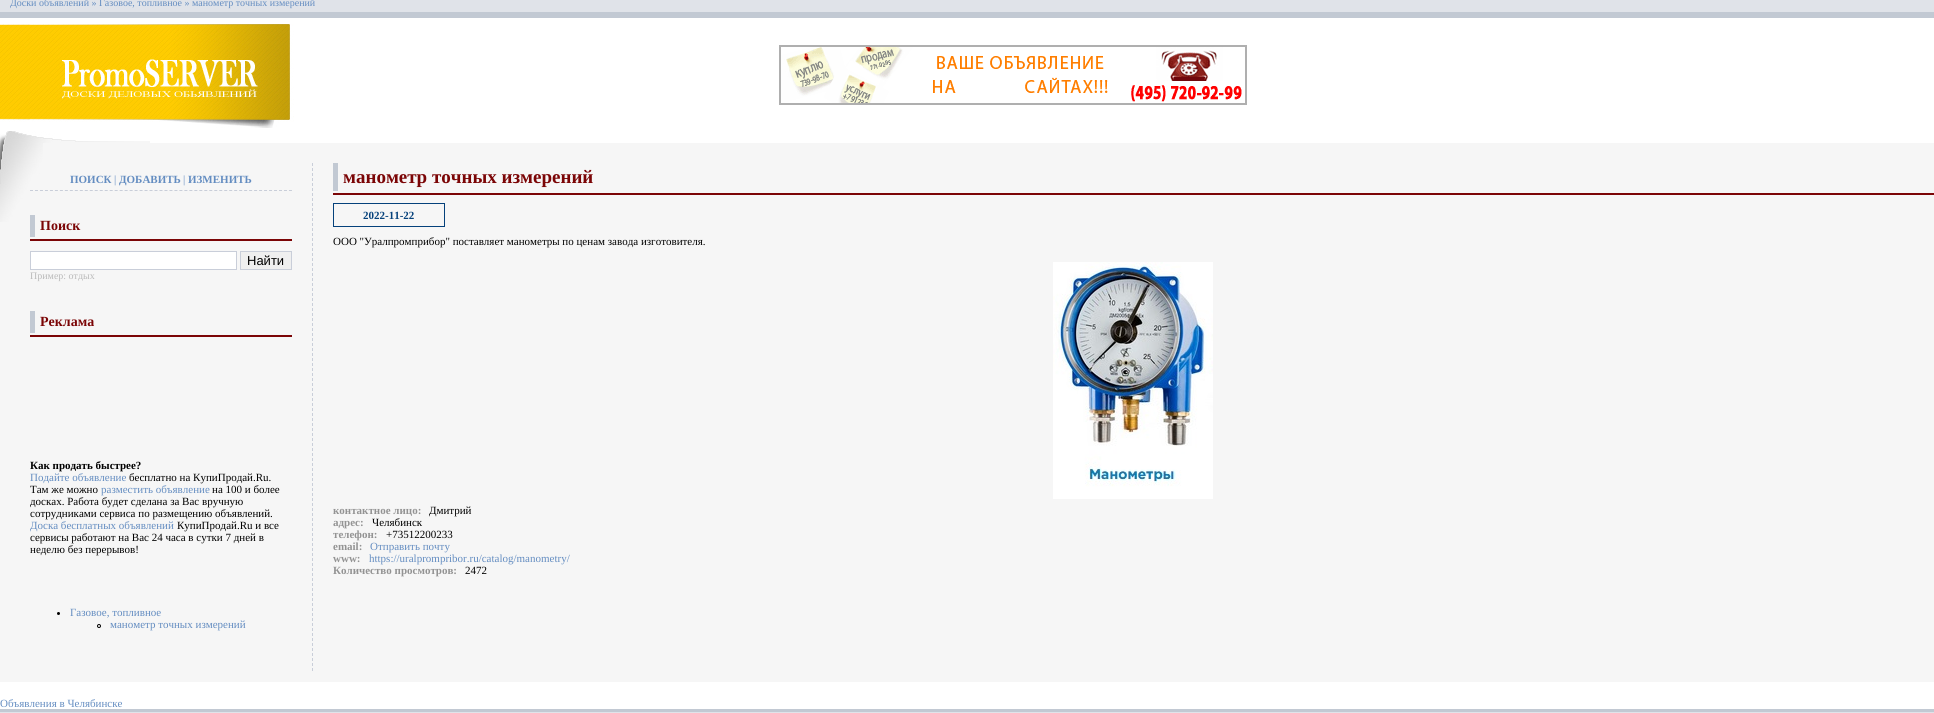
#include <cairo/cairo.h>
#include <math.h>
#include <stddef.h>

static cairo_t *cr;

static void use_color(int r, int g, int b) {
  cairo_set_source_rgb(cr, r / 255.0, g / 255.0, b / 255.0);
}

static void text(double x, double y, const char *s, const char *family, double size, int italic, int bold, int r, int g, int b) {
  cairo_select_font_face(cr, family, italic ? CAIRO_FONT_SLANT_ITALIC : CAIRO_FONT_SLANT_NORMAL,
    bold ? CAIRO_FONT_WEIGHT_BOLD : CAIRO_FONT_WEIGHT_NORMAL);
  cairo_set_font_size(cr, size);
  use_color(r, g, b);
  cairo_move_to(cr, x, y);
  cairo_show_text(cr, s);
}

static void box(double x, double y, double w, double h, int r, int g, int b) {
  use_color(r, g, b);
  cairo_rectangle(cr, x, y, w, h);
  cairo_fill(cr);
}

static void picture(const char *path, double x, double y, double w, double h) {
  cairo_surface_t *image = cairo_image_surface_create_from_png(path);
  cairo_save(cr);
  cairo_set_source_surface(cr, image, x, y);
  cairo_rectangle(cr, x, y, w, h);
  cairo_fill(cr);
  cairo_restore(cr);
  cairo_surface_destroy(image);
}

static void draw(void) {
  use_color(255, 255, 255);
  cairo_paint(cr);
  box(0, 0, 1934, 12, 224, 227, 233);
  box(0, 12, 1934, 6, 194, 201, 211);
  picture("img_01.png", 0, 24, 294, 104);
  picture("img_02.png", 779, 45, 468, 60);
  picture("img_03.png", 0, 131, 150, 12);
  box(0, 143, 1934, 539, 246, 246, 246);
  picture("img_04.png", 0, 143, 43, 79);
  cairo_new_path(cr);
  cairo_move_to(cr, 312.5, 163);
  cairo_line_to(cr, 312.5, 671);
  use_color(201, 206, 217);
  cairo_set_line_width(cr, 1);
  cairo_set_dash(cr, (double[]){3, 2}, 2, 0);
  cairo_stroke(cr);
  cairo_new_path(cr);
  cairo_move_to(cr, 30, 190.5);
  cairo_line_to(cr, 292, 190.5);
  cairo_set_dash(cr, (double[]){3, 1.98}, 2, 0);
  cairo_stroke(cr);
  box(30, 239, 262, 2, 123, 5, 6);
  box(30, 215, 5, 22, 194, 201, 211);
  use_color(255, 255, 255);
  cairo_rectangle(cr, 30.5, 251.5, 206, 18);
  cairo_fill_preserve(cr);
  use_color(201, 206, 217);
  cairo_set_dash(cr, NULL, 0, 0);
  cairo_stroke(cr);
  use_color(239, 239, 239);
  cairo_rectangle(cr, 240.5, 251.5, 51, 18);
  cairo_fill_preserve(cr);
  use_color(201, 206, 217);
  cairo_stroke(cr);
  box(30, 335, 262, 2, 123, 5, 6);
  box(30, 311, 5, 22, 194, 201, 211);
  use_color(0, 0, 0);
  cairo_arc(cr, 58.5, 613.5, 1.5, 0, 2 * M_PI);
  cairo_fill(cr);
  cairo_arc(cr, 99, 626, 1.5, 0, 2 * M_PI);
  cairo_stroke(cr);
  box(333, 193, 1601, 2, 123, 5, 6);
  box(333, 163, 5, 28, 194, 201, 211);
  cairo_rectangle(cr, 333.5, 203.5, 111, 23);
  use_color(5, 65, 123);
  cairo_stroke(cr);
  picture("img_05.png", 1053, 262, 160, 237);
  box(0, 709, 1934, 3, 194, 201, 211);
  box(0, 712, 1934, 1, 224, 227, 233);
  text(10, 6, "Доски объявлений » Газовое, топливное » манометр точных измерений", "Liberation Serif", 10, 0, 0, 100, 141, 193);
  text(70, 183, "ПОИСК", "Liberation Serif", 11, 0, 1, 100, 141, 193);
  text(114, 183, "|", "Liberation Serif", 11, 0, 0, 100, 141, 193);
  text(119, 183, "ДОБАВИТЬ", "Liberation Serif", 11, 0, 1, 100, 141, 193);
  text(183, 183, "|", "Liberation Serif", 11, 0, 0, 100, 141, 193);
  text(188, 183, "ИЗМЕНИТЬ", "Liberation Serif", 11, 0, 1, 100, 141, 193);
  text(40, 230, "Поиск", "Liberation Serif", 14, 0, 1, 123, 5, 6);
  text(247, 265, "Найти", "Liberation Sans", 13, 0, 0, 0, 0, 0);
  text(30, 279, "Пример: отдых", "Liberation Serif", 10, 0, 0, 186, 186, 186);
  text(40, 326, "Реклама", "Liberation Serif", 14, 0, 1, 123, 5, 6);
  text(30, 469, "Как продать быстрее?", "Liberation Serif", 11, 0, 1, 0, 0, 0);
  text(30, 481, "Подайте объявление", "Liberation Serif", 11, 0, 0, 100, 141, 193);
  text(129, 481, "бесплатно на КупиПродай.Ru.", "Liberation Serif", 11, 0, 0, 0, 0, 0);
  text(30, 493, "Там же можно", "Liberation Serif", 11, 0, 0, 0, 0, 0);
  text(101, 493, "разместить объявление", "Liberation Serif", 11, 0, 0, 100, 141, 193);
  text(212, 493, "на 100 и более", "Liberation Serif", 11, 0, 0, 0, 0, 0);
  text(30, 505, "досках. Работа будет сделана за Вас вручную", "Liberation Serif", 11, 0, 0, 0, 0, 0);
  text(30, 517, "сотрудниками сервиса по размещению объявлений.", "Liberation Serif", 11, 0, 0, 0, 0, 0);
  text(30, 529, "Доска бесплатных объявлений", "Liberation Serif", 11, 0, 0, 100, 141, 193);
  text(177, 529, "КупиПродай.Ru и все", "Liberation Serif", 11, 0, 0, 0, 0, 0);
  text(30, 541, "сервисы работают на Вас 24 часа в сутки 7 дней в", "Liberation Serif", 11, 0, 0, 0, 0, 0);
  text(30, 553, "неделю без перерывов!", "Liberation Serif", 11, 0, 0, 0, 0, 0);
  text(70, 616, "Газовое, топливное", "Liberation Serif", 11, 0, 0, 100, 141, 193);
  text(110, 628, "манометр точных измерений", "Liberation Serif", 11, 0, 0, 100, 141, 193);
  text(343, 183, "манометр точных измерений", "Liberation Serif", 19, 0, 1, 123, 5, 6);
  text(363, 219, "2022-11-22", "Liberation Serif", 11, 0, 1, 5, 65, 123);
  text(333, 245, "ООО \"Уралпромприбор\" поставляет манометры по ценам завода изготовителя.", "Liberation Serif", 11, 0, 0, 0, 0, 0);
  text(333, 514, "контактное лицо:", "Liberation Serif", 11, 0, 1, 147, 147, 147);
  text(429, 514, "Дмитрий", "Liberation Serif", 11, 0, 0, 0, 0, 0);
  text(333, 526, "адрес:", "Liberation Serif", 11, 0, 1, 147, 147, 147);
  text(372, 526, "Челябинск", "Liberation Serif", 11, 0, 0, 0, 0, 0);
  text(333, 538, "телефон:", "Liberation Serif", 11, 0, 1, 147, 147, 147);
  text(386, 538, "+73512200233", "Liberation Serif", 11, 0, 0, 0, 0, 0);
  text(333, 550, "email:", "Liberation Serif", 11, 0, 1, 147, 147, 147);
  text(370, 550, "Отправить почту", "Liberation Serif", 11, 0, 0, 100, 141, 193);
  text(333, 562, "www:", "Liberation Serif", 11, 0, 1, 147, 147, 147);
  text(369, 562, "https://uralprompribor.ru/catalog/manometry/", "Liberation Serif", 11, 0, 0, 100, 141, 193);
  text(333, 574, "Количество просмотров:", "Liberation Serif", 11, 0, 1, 147, 147, 147);
  text(465, 574, "2472", "Liberation Serif", 11, 0, 0, 0, 0, 0);
  text(0, 707, "Объявления в Челябинске", "Liberation Serif", 11, 0, 0, 100, 141, 193);
}

int main(void) {
  cairo_surface_t *surface = cairo_image_surface_create(CAIRO_FORMAT_RGB24, 1934, 713);
  cr = cairo_create(surface);
  cairo_font_options_t *options = cairo_font_options_create();
  cairo_font_options_set_hint_metrics(options, CAIRO_HINT_METRICS_OFF);
  cairo_font_options_set_hint_style(options, CAIRO_HINT_STYLE_NONE);
  cairo_set_font_options(cr, options);
  cairo_set_miter_limit(cr, 4);
  draw();
  cairo_surface_write_to_png(surface, "out.png");
  cairo_font_options_destroy(options);
  cairo_destroy(cr);
  cairo_surface_destroy(surface);
  return 0;
}
